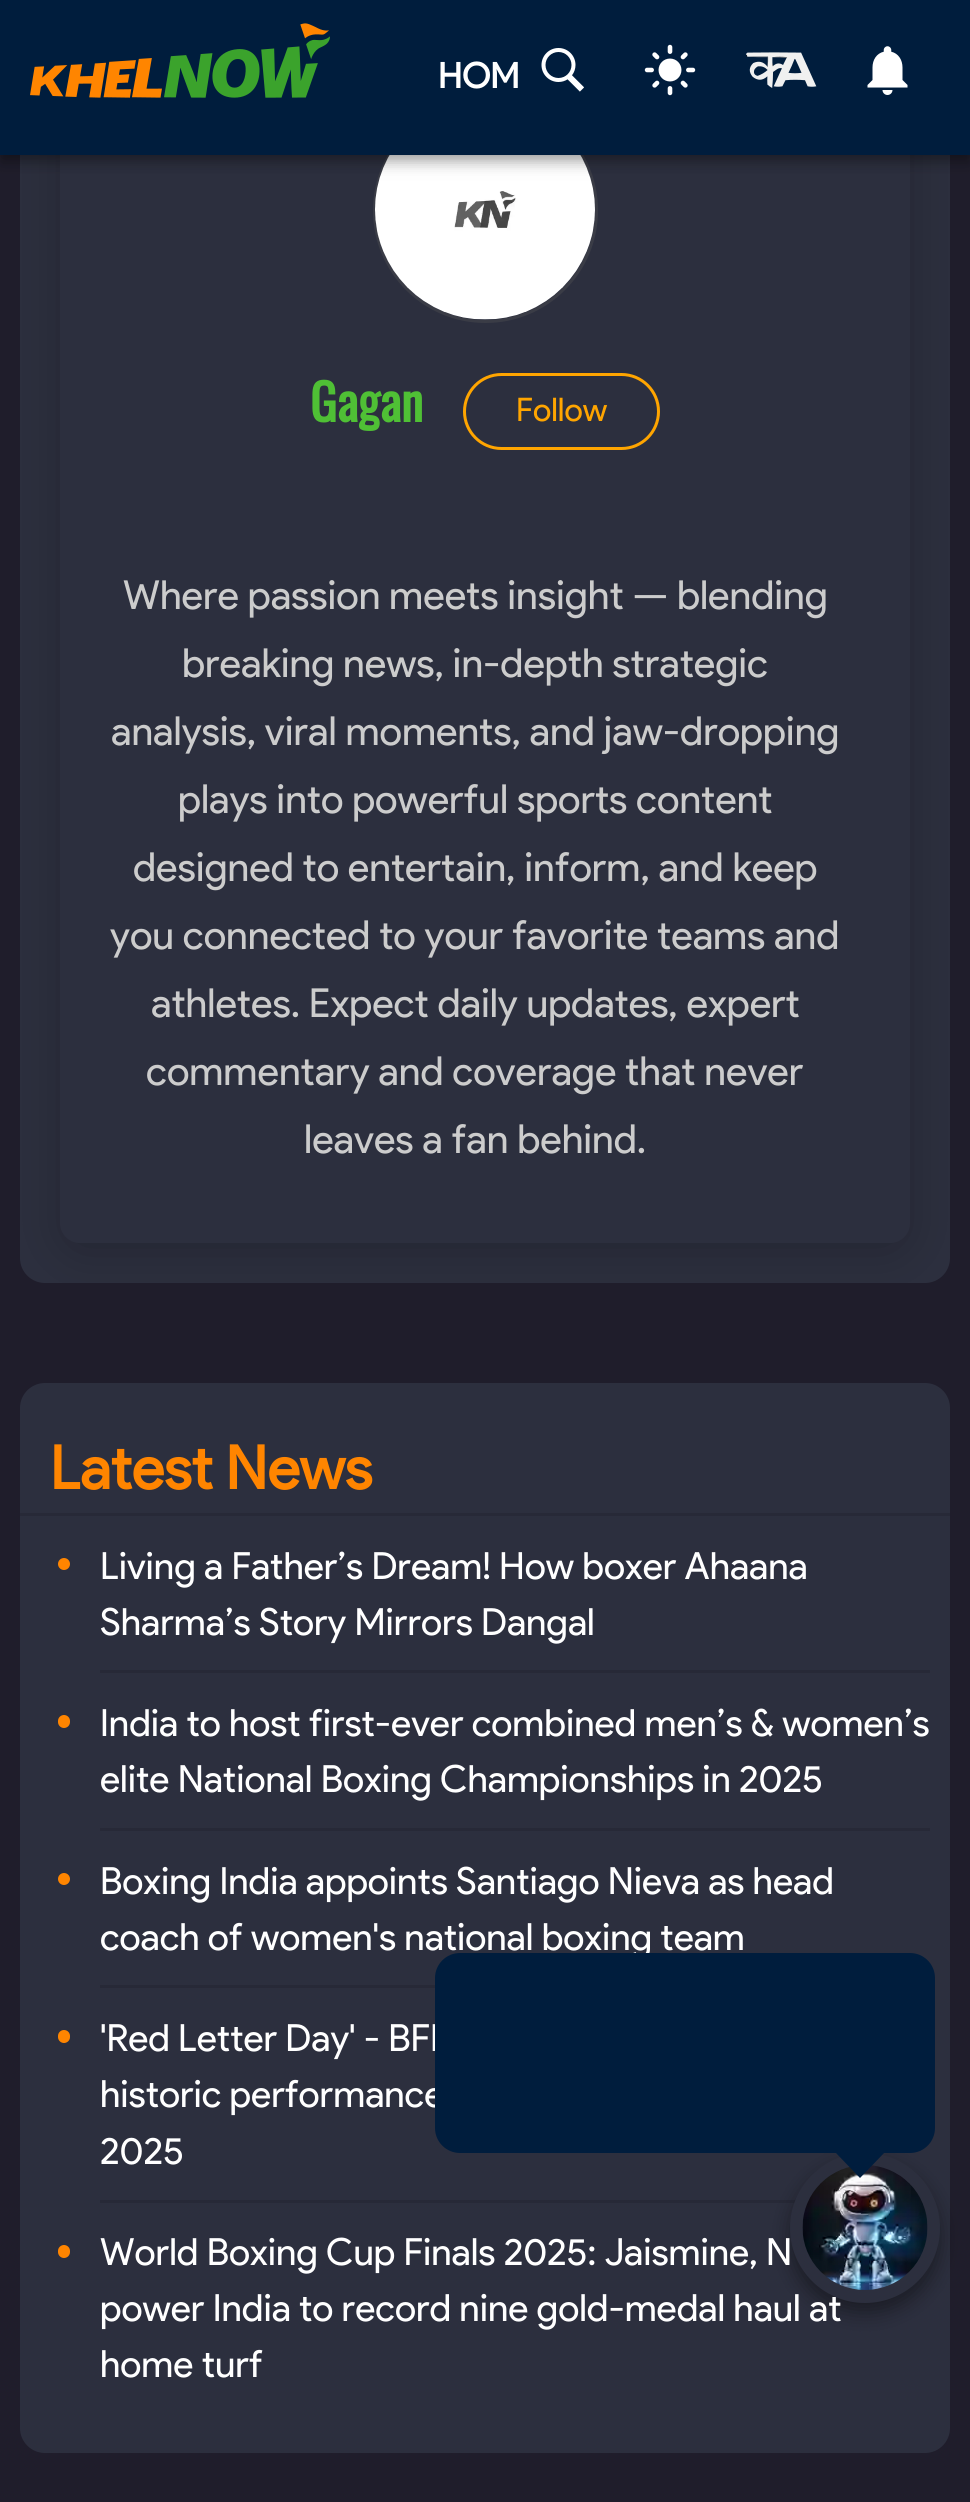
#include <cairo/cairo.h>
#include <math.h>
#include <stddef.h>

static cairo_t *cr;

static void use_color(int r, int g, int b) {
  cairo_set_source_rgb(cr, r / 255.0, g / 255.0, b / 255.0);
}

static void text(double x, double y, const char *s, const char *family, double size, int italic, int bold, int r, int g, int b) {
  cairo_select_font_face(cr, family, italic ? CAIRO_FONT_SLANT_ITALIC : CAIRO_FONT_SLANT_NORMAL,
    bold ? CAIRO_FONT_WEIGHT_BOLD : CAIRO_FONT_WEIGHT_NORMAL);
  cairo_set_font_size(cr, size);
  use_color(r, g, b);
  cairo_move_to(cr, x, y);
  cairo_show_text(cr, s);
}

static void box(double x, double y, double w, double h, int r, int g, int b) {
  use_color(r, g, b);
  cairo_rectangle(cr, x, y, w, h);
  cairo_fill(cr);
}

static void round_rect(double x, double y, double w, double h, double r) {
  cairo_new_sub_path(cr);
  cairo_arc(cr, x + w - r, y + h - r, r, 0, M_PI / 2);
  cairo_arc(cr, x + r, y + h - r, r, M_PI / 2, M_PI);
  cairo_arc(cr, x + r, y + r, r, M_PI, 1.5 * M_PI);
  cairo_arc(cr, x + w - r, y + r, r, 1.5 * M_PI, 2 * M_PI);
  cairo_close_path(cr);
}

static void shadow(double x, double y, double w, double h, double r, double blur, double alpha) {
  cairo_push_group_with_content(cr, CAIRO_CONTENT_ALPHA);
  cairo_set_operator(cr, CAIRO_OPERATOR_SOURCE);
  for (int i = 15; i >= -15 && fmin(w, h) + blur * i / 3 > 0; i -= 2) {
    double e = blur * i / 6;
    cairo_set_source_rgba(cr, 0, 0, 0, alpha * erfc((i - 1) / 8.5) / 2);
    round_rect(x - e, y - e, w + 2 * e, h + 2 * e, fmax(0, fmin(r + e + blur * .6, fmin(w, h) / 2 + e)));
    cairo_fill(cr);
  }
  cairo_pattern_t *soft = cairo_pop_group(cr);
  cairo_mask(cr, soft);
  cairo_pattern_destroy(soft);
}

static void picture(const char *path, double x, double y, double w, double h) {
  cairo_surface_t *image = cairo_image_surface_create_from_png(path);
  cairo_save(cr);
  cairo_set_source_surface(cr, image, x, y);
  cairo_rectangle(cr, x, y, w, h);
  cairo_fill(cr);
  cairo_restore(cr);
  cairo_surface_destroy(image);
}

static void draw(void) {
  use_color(31, 29, 43);
  cairo_paint(cr);
  use_color(44, 47, 62);
  round_rect(20, -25, 930, 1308, 25);
  cairo_fill(cr);
  cairo_save(cr);
  round_rect(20, -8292, 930, 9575, 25);
  cairo_clip(cr);
  use_color(0, 0, 0);
  shadow(60, 58, 850, 1195, 20, 25, 0.2);
  cairo_restore(cr);
  round_rect(60, 48, 850, 1195, 20);
  cairo_fill(cr);
  cairo_arc(cr, 485.5, 210.5, 111, 0, 2 * M_PI);
  use_color(58, 60, 70);
  cairo_set_line_width(cr, 3);
  cairo_stroke(cr);
  picture("img_06.png", 375, 155, 220, 165);
  use_color(0, 0, 0);
  shadow(0, 3, 970, 155, 0, 12.5, 0.12);
  shadow(0, 10, 970, 155, 0, 6, 0.14);
  shadow(3, 8, 965, 150, 0, 5, 0.2);
  box(0, 0, 970, 155, 0, 29, 61);
  picture("img_01.png", 30, 23, 300, 75);
  picture("img_02.png", 541, 48, 43, 44);
  picture("img_03.png", 644, 44, 52, 52);
  picture("img_04.png", 746, 52, 71, 36);
  picture("img_05.png", 867, 46, 41, 49);
  round_rect(464.5, 374.5, 194, 74, 37);
  use_color(255, 165, 0);
  cairo_stroke(cr);
  use_color(44, 47, 62);
  round_rect(20, 1383, 930, 1070, 25);
  cairo_fill(cr);
  box(20, 1513, 930, 3, 39, 41, 55);
  use_color(255, 133, 0);
  cairo_arc(cr, 64, 1564, 6, 0, 2 * M_PI);
  cairo_fill(cr);
  box(100, 1670, 830, 3, 39, 41, 55);
  use_color(255, 133, 0);
  round_rect(58, 1715, 12, 13, 6);
  cairo_fill(cr);
  box(100, 1828, 830, 3, 39, 41, 55);
  use_color(255, 133, 0);
  cairo_arc(cr, 64, 1879, 6, 0, 2 * M_PI);
  cairo_fill(cr);
  box(100, 1985, 335, 3, 39, 41, 55);
  use_color(255, 133, 0);
  round_rect(58, 2030, 12, 13, 6);
  cairo_fill(cr);
  box(100, 2200, 696, 3, 39, 41, 55);
  use_color(255, 133, 0);
  round_rect(58, 2245, 12, 13, 6);
  cairo_fill(cr);
  use_color(0, 0, 0);
  shadow(790, 2163, 150, 150, 75, 10, 0.4);
  text(438, 88, "HOM", "Product Sans", 35, 0, 1, 255, 255, 255);
  text(310, 422, "Gagan", "Oswald", 50, 0, 1, 79, 192, 53);
  text(516, 421, "Follow", "Product Sans", 32.5, 0, 0, 255, 165, 0);
  text(123, 609, "Where passion meets insight — blending", "Product Sans", 40, 0, 0, 204, 204, 204);
  text(182, 677, "breaking news, in-depth strategic", "Product Sans", 40, 0, 0, 204, 204, 204);
  text(111, 745, "analysis, viral moments, and jaw-dropping", "Product Sans", 40, 0, 0, 204, 204, 204);
  text(178, 813, "plays into powerful sports content", "Product Sans", 40, 0, 0, 204, 204, 204);
  text(133, 881, "designed to entertain, inform, and keep", "Product Sans", 40, 0, 0, 204, 204, 204);
  text(110, 949, "you connected to your favorite teams and", "Product Sans", 40, 0, 0, 204, 204, 204);
  text(151, 1017, "athletes. Expect daily updates, expert", "Product Sans", 40, 0, 0, 204, 204, 204);
  text(146, 1085, "commentary and coverage that never", "Product Sans", 40, 0, 0, 204, 204, 204);
  text(304, 1153, "leaves a fan behind.", "Product Sans", 40, 0, 0, 204, 204, 204);
  text(50, 1489, "Latest News", "Product Sans", 60, 0, 1, 255, 133, 0);
  text(100, 1579, "Living a Father’s Dream! How boxer Ahaana", "Product Sans", 37.5, 0, 0, 255, 255, 255);
  text(100, 1635, "Sharma’s Story Mirrors Dangal", "Product Sans", 37.5, 0, 0, 255, 255, 255);
  text(100, 1736, "India to host first-ever combined men’s & women’s", "Product Sans", 37.5, 0, 0, 255, 255, 255);
  text(100, 1792, "elite National Boxing Championships in 2025", "Product Sans", 37.5, 0, 0, 255, 255, 255);
  text(100, 1894, "Boxing India appoints Santiago Nieva as head", "Product Sans", 37.5, 0, 0, 255, 255, 255);
  text(100, 1950, "coach of women's national boxing team", "Product Sans", 37.5, 0, 0, 255, 255, 255);
  text(100, 2051, "'Red Letter Day' - BFI", "Product Sans", 37.5, 0, 0, 255, 255, 255);
  text(100, 2107, "historic performance", "Product Sans", 37.5, 0, 0, 255, 255, 255);
  text(100, 2164, "2025", "Product Sans", 37.5, 0, 0, 255, 255, 255);
  text(100, 2265, "World Boxing Cup Finals 2025: Jaismine, N", "Product Sans", 37.5, 0, 0, 255, 255, 255);
  text(100, 2321, "power India to record nine gold-medal haul at", "Product Sans", 37.5, 0, 0, 255, 255, 255);
  text(100, 2377, "home turf", "Product Sans", 37.5, 0, 0, 255, 255, 255);
  use_color(0, 29, 61);
  round_rect(435, 1953, 500, 200, 25);
  cairo_fill(cr);
  use_color(44, 47, 62);
  cairo_arc(cr, 865, 2228, 75, 0, 2 * M_PI);
  cairo_fill(cr);
  picture("img_07.png", 802, 2165, 126, 125);
  use_color(0, 29, 61);
  cairo_new_path(cr);
  cairo_move_to(cr, 835, 2152);
  cairo_line_to(cr, 885, 2152);
  cairo_line_to(cr, 860, 2178);
  cairo_close_path(cr);
  cairo_fill(cr);
}

int main(void) {
  cairo_surface_t *surface = cairo_image_surface_create(CAIRO_FORMAT_RGB24, 970, 2502);
  cr = cairo_create(surface);
  cairo_font_options_t *options = cairo_font_options_create();
  cairo_font_options_set_hint_metrics(options, CAIRO_HINT_METRICS_OFF);
  cairo_font_options_set_hint_style(options, CAIRO_HINT_STYLE_NONE);
  cairo_set_font_options(cr, options);
  cairo_set_miter_limit(cr, 4);
  draw();
  cairo_surface_write_to_png(surface, "out.png");
  cairo_font_options_destroy(options);
  cairo_destroy(cr);
  cairo_surface_destroy(surface);
  return 0;
}
